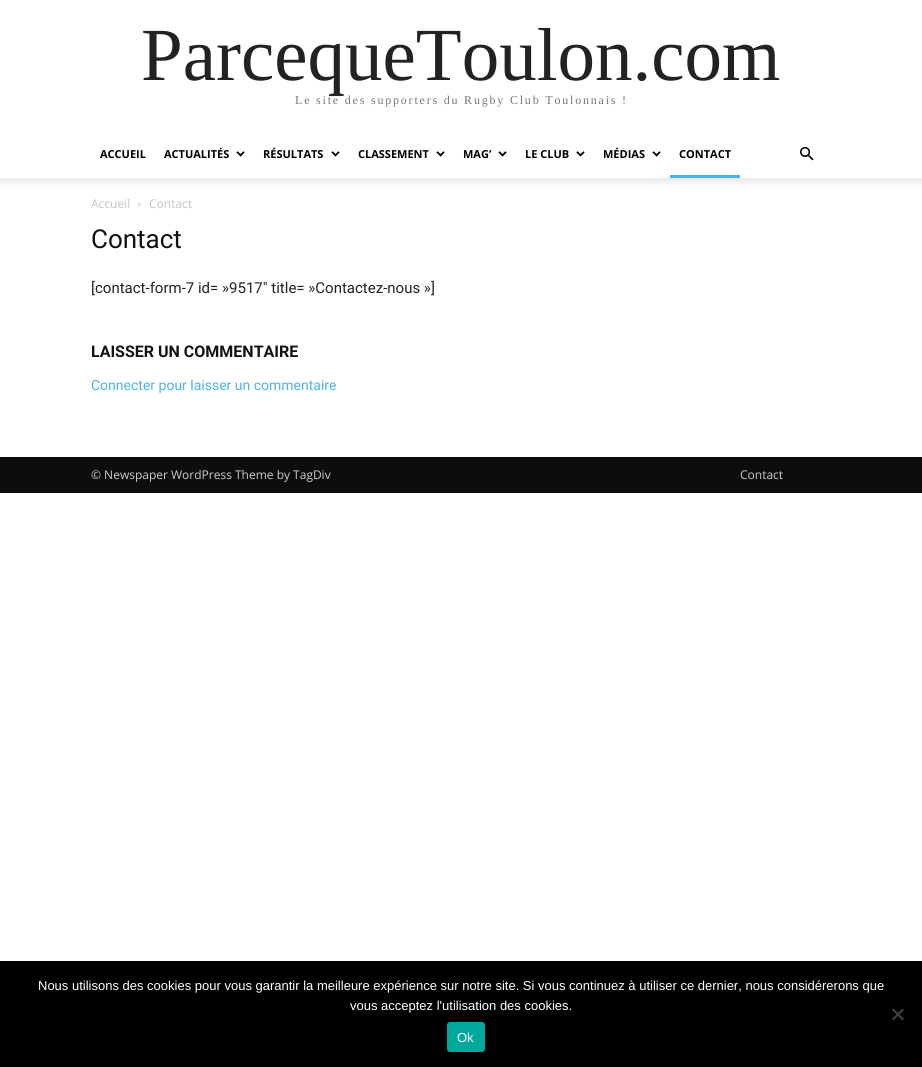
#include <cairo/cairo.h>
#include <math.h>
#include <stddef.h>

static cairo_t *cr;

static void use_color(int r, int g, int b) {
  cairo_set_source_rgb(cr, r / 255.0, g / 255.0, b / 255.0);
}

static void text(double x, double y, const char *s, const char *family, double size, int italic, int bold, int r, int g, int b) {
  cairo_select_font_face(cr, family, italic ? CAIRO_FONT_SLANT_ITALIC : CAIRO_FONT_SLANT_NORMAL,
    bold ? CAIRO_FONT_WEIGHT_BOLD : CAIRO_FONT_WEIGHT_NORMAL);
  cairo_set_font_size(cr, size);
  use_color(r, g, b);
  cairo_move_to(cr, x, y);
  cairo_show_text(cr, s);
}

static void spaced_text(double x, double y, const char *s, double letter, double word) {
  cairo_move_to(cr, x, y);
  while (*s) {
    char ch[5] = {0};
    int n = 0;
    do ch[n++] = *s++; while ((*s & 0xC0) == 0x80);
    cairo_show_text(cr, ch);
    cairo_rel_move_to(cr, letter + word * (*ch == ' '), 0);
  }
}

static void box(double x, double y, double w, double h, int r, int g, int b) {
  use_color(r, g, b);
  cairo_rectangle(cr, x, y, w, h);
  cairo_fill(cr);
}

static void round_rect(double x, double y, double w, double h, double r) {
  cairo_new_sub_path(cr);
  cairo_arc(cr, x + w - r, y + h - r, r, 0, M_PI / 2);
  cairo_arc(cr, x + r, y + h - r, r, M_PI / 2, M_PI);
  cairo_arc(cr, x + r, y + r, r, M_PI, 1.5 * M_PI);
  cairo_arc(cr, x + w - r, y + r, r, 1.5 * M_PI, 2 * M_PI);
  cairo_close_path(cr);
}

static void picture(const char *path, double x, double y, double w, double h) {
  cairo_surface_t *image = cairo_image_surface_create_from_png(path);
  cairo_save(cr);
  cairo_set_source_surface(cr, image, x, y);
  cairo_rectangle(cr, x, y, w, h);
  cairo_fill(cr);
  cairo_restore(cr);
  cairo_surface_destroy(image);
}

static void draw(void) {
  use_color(255, 255, 255);
  cairo_paint(cr);
  picture("img_01.png", 236, 151, 9, 6);
  picture("img_01.png", 331, 151, 9, 6);
  picture("img_01.png", 436, 151, 9, 6);
  picture("img_01.png", 498, 151, 9, 6);
  picture("img_01.png", 576, 151, 9, 6);
  picture("img_01.png", 652, 151, 9, 6);
  box(670, 175, 70, 3, 77, 178, 236);
  picture("img_02.png", 800, 146, 14, 15);
  picture("img_03.png", 0, 178, 922, 9);
  picture("img_04.png", 138, 202, 3, 5);
  box(0, 457, 922, 36, 13, 13, 13);
  box(0, 961, 922, 106, 0, 0, 0);
  use_color(64, 64, 64);
  cairo_new_path(cr);
  cairo_move_to(cr, 902.5, 1008.5);
  cairo_line_to(cr, 904, 1010);
  cairo_line_to(cr, 893.5, 1020.5);
  cairo_line_to(cr, 892, 1019);
  cairo_close_path(cr);
  cairo_fill(cr);
  cairo_new_path(cr);
  cairo_move_to(cr, 892, 1010);
  cairo_line_to(cr, 893.5, 1008.5);
  cairo_line_to(cr, 904, 1019);
  cairo_line_to(cr, 902.5, 1020.5);
  cairo_close_path(cr);
  cairo_fill(cr);
  use_color(0, 169, 157);
  round_rect(447, 1022, 38, 30, 3);
  cairo_fill(cr);
  text(141, 80, "ParcequeToulon.com", "Liberation Serif", 75, 0, 0, 34, 34, 34);
  cairo_set_font_size(cr, 12);
  use_color(119, 119, 119);
  spaced_text(295, 104, "Le site des supporters du Rugby Club Toulonnais !", 1.8, 0);
  text(100, 158, "ACCUEIL", "Open Sans", 11, 0, 1, 0, 0, 0);
  text(164, 158, "ACTUALITÉS", "Open Sans", 11, 0, 1, 0, 0, 0);
  text(263, 158, "RÉSULTATS", "Open Sans", 11, 0, 1, 0, 0, 0);
  text(358, 158, "CLASSEMENT", "Open Sans", 11, 0, 1, 0, 0, 0);
  text(463, 158, "MAG’", "Open Sans", 11, 0, 1, 0, 0, 0);
  text(525, 158, "LE CLUB", "Open Sans", 11, 0, 1, 0, 0, 0);
  text(603, 158, "MÉDIAS", "Open Sans", 11, 0, 1, 0, 0, 0);
  text(679, 158, "CONTACT", "Open Sans", 11, 0, 1, 0, 0, 0);
  text(91, 208, "Accueil", "Open Sans", 12, 0, 0, 195, 195, 195);
  text(149, 208, "Contact", "Open Sans", 12, 0, 0, 195, 195, 195);
  text(91, 248, "Contact", "Roboto", 26, 0, 0, 17, 17, 17);
  text(91, 293, "[contact-form-7 id= »9517″ title= »Contactez-nous »]", "Roboto", 15, 0, 0, 34, 34, 34);
  text(91, 357, "LAISSER UN COMMENTAIRE", "Roboto", 16, 0, 1, 17, 17, 17);
  text(91, 390, "Connecter pour laisser un commentaire", "Roboto", 14, 0, 0, 77, 178, 236);
  text(91, 479, "© Newspaper WordPress Theme by TagDiv", "Open Sans", 12, 0, 0, 204, 204, 204);
  text(740, 479, "Contact", "Open Sans", 12, 0, 0, 204, 204, 204);
  text(38, 990, "Nous utilisons des cookies pour vous garantir la meilleure expérience sur notre site. Si vous continuez à utiliser ce dernier, nous considérerons que", "Liberation Sans", 13, 0, 0, 255, 255, 255);
  text(350, 1010, "vous acceptez l'utilisation des cookies.", "Liberation Sans", 13, 0, 0, 255, 255, 255);
  text(457, 1042, "Ok", "Liberation Sans", 13, 0, 0, 255, 255, 255);
}

int main(void) {
  cairo_surface_t *surface = cairo_image_surface_create(CAIRO_FORMAT_RGB24, 922, 1067);
  cr = cairo_create(surface);
  cairo_font_options_t *options = cairo_font_options_create();
  cairo_font_options_set_hint_metrics(options, CAIRO_HINT_METRICS_OFF);
  cairo_font_options_set_hint_style(options, CAIRO_HINT_STYLE_NONE);
  cairo_set_font_options(cr, options);
  cairo_set_miter_limit(cr, 4);
  draw();
  cairo_surface_write_to_png(surface, "out.png");
  cairo_font_options_destroy(options);
  cairo_destroy(cr);
  cairo_surface_destroy(surface);
  return 0;
}
